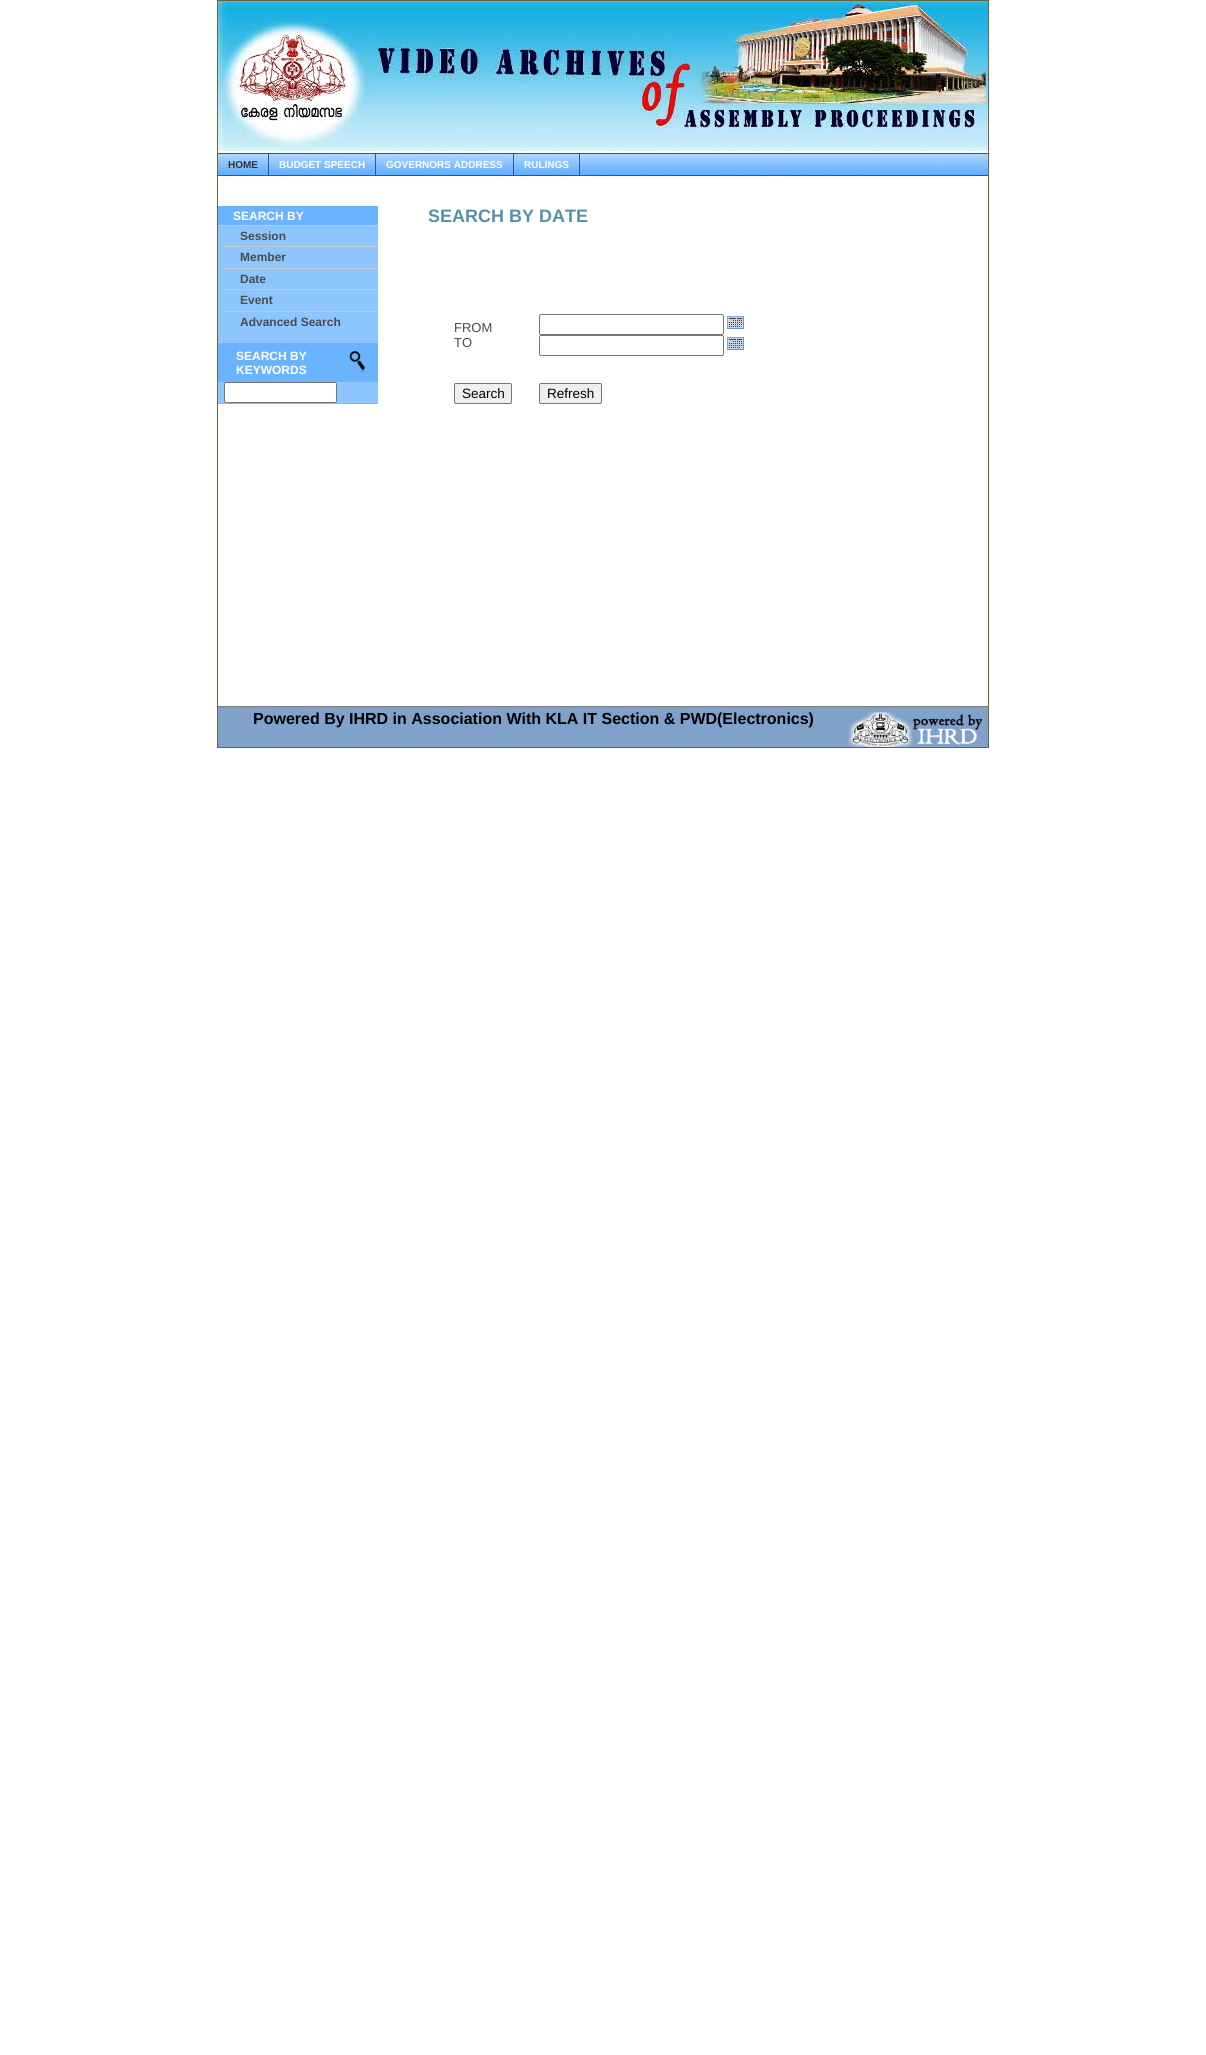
#include <cairo/cairo.h>
#include <math.h>
#include <stddef.h>

static cairo_t *cr;

static void use_color(int r, int g, int b) {
  cairo_set_source_rgb(cr, r / 255.0, g / 255.0, b / 255.0);
}

static void text(double x, double y, const char *s, const char *family, double size, int italic, int bold, int r, int g, int b) {
  cairo_select_font_face(cr, family, italic ? CAIRO_FONT_SLANT_ITALIC : CAIRO_FONT_SLANT_NORMAL,
    bold ? CAIRO_FONT_WEIGHT_BOLD : CAIRO_FONT_WEIGHT_NORMAL);
  cairo_set_font_size(cr, size);
  use_color(r, g, b);
  cairo_move_to(cr, x, y);
  cairo_show_text(cr, s);
}

static void box(double x, double y, double w, double h, int r, int g, int b) {
  use_color(r, g, b);
  cairo_rectangle(cr, x, y, w, h);
  cairo_fill(cr);
}

static void round_rect(double x, double y, double w, double h, double r) {
  cairo_new_sub_path(cr);
  cairo_arc(cr, x + w - r, y + h - r, r, 0, M_PI / 2);
  cairo_arc(cr, x + r, y + h - r, r, M_PI / 2, M_PI);
  cairo_arc(cr, x + r, y + r, r, M_PI, 1.5 * M_PI);
  cairo_arc(cr, x + w - r, y + r, r, 1.5 * M_PI, 2 * M_PI);
  cairo_close_path(cr);
}

static void picture(const char *path, double x, double y, double w, double h) {
  cairo_surface_t *image = cairo_image_surface_create_from_png(path);
  cairo_save(cr);
  cairo_set_source_surface(cr, image, x, y);
  cairo_rectangle(cr, x, y, w, h);
  cairo_fill(cr);
  cairo_restore(cr);
  cairo_surface_destroy(image);
}

static void draw(void) {
  use_color(255, 255, 255);
  cairo_paint(cr);
  cairo_rectangle(cr, 217.5, 0.5, 771, 747);
  use_color(102, 102, 51);
  cairo_set_line_width(cr, 1);
  cairo_stroke(cr);
  picture("img_01.png", 218, 1, 770, 150);
  picture("img_02.png", 218, 154, 770, 21);
  box(218, 153, 770, 1, 54, 83, 151);
  box(218, 175, 770, 1, 54, 83, 151);
  box(268, 154, 1, 21, 54, 83, 151);
  box(375, 154, 1, 21, 54, 83, 151);
  box(513, 154, 1, 21, 54, 83, 151);
  box(579, 154, 1, 21, 54, 83, 151);
  box(218, 225, 160, 178, 141, 197, 255);
  box(218, 403, 160, 1, 116, 206, 159);
  box(218, 206, 160, 19, 106, 179, 255);
  use_color(200, 200, 200);
  cairo_new_path(cr);
  cairo_move_to(cr, 218, 225);
  cairo_line_to(cr, 378, 225);
  cairo_line_to(cr, 378, 226);
  cairo_line_to(cr, 225, 226);
  cairo_close_path(cr);
  cairo_fill(cr);
  use_color(141, 197, 255);
  cairo_new_path(cr);
  cairo_move_to(cr, 218, 246);
  cairo_line_to(cr, 218, 225);
  cairo_line_to(cr, 225, 226);
  cairo_line_to(cr, 225, 246);
  cairo_close_path(cr);
  cairo_fill(cr);
  use_color(200, 200, 200);
  cairo_new_path(cr);
  cairo_move_to(cr, 218, 246);
  cairo_line_to(cr, 378, 246);
  cairo_line_to(cr, 378, 247);
  cairo_line_to(cr, 225, 247);
  cairo_close_path(cr);
  cairo_fill(cr);
  use_color(141, 197, 255);
  cairo_new_path(cr);
  cairo_move_to(cr, 218, 268);
  cairo_line_to(cr, 218, 246);
  cairo_line_to(cr, 225, 247);
  cairo_line_to(cr, 225, 268);
  cairo_close_path(cr);
  cairo_fill(cr);
  use_color(200, 200, 200);
  cairo_new_path(cr);
  cairo_move_to(cr, 218, 268);
  cairo_line_to(cr, 378, 268);
  cairo_line_to(cr, 378, 269);
  cairo_line_to(cr, 225, 269);
  cairo_close_path(cr);
  cairo_fill(cr);
  use_color(141, 197, 255);
  cairo_new_path(cr);
  cairo_move_to(cr, 218, 289);
  cairo_line_to(cr, 218, 268);
  cairo_line_to(cr, 225, 269);
  cairo_line_to(cr, 225, 289);
  cairo_close_path(cr);
  cairo_fill(cr);
  use_color(200, 200, 200);
  cairo_new_path(cr);
  cairo_move_to(cr, 218, 289);
  cairo_line_to(cr, 378, 289);
  cairo_line_to(cr, 378, 290);
  cairo_line_to(cr, 225, 290);
  cairo_close_path(cr);
  cairo_fill(cr);
  use_color(141, 197, 255);
  cairo_new_path(cr);
  cairo_move_to(cr, 218, 311);
  cairo_line_to(cr, 218, 289);
  cairo_line_to(cr, 225, 290);
  cairo_line_to(cr, 225, 311);
  cairo_close_path(cr);
  cairo_fill(cr);
  use_color(200, 200, 200);
  cairo_new_path(cr);
  cairo_move_to(cr, 218, 311);
  cairo_line_to(cr, 378, 311);
  cairo_line_to(cr, 378, 312);
  cairo_line_to(cr, 225, 312);
  cairo_close_path(cr);
  cairo_fill(cr);
  use_color(141, 197, 255);
  cairo_new_path(cr);
  cairo_move_to(cr, 218, 332);
  cairo_line_to(cr, 218, 311);
  cairo_line_to(cr, 225, 312);
  cairo_line_to(cr, 225, 332);
  cairo_close_path(cr);
  cairo_fill(cr);
  box(218, 343, 160, 39, 106, 179, 255);
  picture("img_03.png", 349, 350, 16, 23);
  use_color(255, 255, 255);
  round_rect(224.5, 382.5, 112, 20, 1.5);
  cairo_fill_preserve(cr);
  use_color(118, 118, 118);
  cairo_stroke(cr);
  round_rect(539.5, 314.5, 184, 20, 1.5);
  cairo_stroke(cr);
  picture("img_04.png", 727, 316, 17, 13);
  round_rect(539.5, 335.5, 184, 20, 1.5);
  cairo_stroke(cr);
  picture("img_04.png", 727, 337, 17, 13);
  use_color(239, 239, 239);
  round_rect(454.5, 383.5, 57, 20, 1.5);
  cairo_fill_preserve(cr);
  use_color(118, 118, 118);
  cairo_stroke(cr);
  use_color(239, 239, 239);
  round_rect(539.5, 383.5, 62, 20, 1.5);
  cairo_fill_preserve(cr);
  use_color(118, 118, 118);
  cairo_stroke(cr);
  box(218, 707, 770, 40, 128, 161, 202);
  box(218, 706, 770, 1, 125, 125, 125);
  picture("img_05.png", 848, 712, 135, 35);
  text(228, 168, "HOME", "Liberation Sans", 10, 0, 1, 50, 50, 50);
  text(279, 168, "BUDGET SPEECH", "Liberation Sans", 10, 0, 1, 255, 255, 255);
  text(386, 168, "GOVERNORS ADDRESS", "Liberation Sans", 10, 0, 1, 255, 255, 255);
  text(524, 168, "RULINGS", "Liberation Sans", 10, 0, 1, 255, 255, 255);
  text(233, 220, "SEARCH BY", "Liberation Sans", 12, 0, 1, 255, 255, 255);
  text(240, 240, "Session", "Liberation Sans", 12, 0, 1, 75, 75, 75);
  text(240, 261, "Member", "Liberation Sans", 12, 0, 1, 75, 75, 75);
  text(240, 283, "Date", "Liberation Sans", 12, 0, 1, 75, 75, 75);
  text(240, 304, "Event", "Liberation Sans", 12, 0, 1, 75, 75, 75);
  text(240, 326, "Advanced Search", "Liberation Sans", 12, 0, 1, 75, 75, 75);
  text(236, 360, "SEARCH BY", "Liberation Sans", 12, 0, 1, 255, 255, 255);
  text(236, 374, "KEYWORDS", "Liberation Sans", 12, 0, 1, 255, 255, 255);
  text(428, 222, "SEARCH BY DATE", "Liberation Sans", 18, 0, 1, 88, 144, 168);
  text(454, 332, "FROM", "Liberation Sans", 13, 0, 0, 75, 75, 75);
  text(454, 347, "TO", "Liberation Sans", 13, 0, 0, 75, 75, 75);
  text(462, 398, "Search", "Liberation Sans", 13.5, 0, 0, 0, 0, 0);
  text(547, 398, "Refresh", "Liberation Sans", 13.5, 0, 0, 0, 0, 0);
  text(253, 724, "Powered By IHRD in Association With KLA IT Section & PWD(Electronics)", "Liberation Sans", 16, 0, 1, 0, 0, 0);
}

int main(void) {
  cairo_surface_t *surface = cairo_image_surface_create(CAIRO_FORMAT_RGB24, 1206, 2055);
  cr = cairo_create(surface);
  cairo_font_options_t *options = cairo_font_options_create();
  cairo_font_options_set_hint_metrics(options, CAIRO_HINT_METRICS_OFF);
  cairo_font_options_set_hint_style(options, CAIRO_HINT_STYLE_NONE);
  cairo_set_font_options(cr, options);
  cairo_set_miter_limit(cr, 4);
  draw();
  cairo_surface_write_to_png(surface, "out.png");
  cairo_font_options_destroy(options);
  cairo_destroy(cr);
  cairo_surface_destroy(surface);
  return 0;
}
